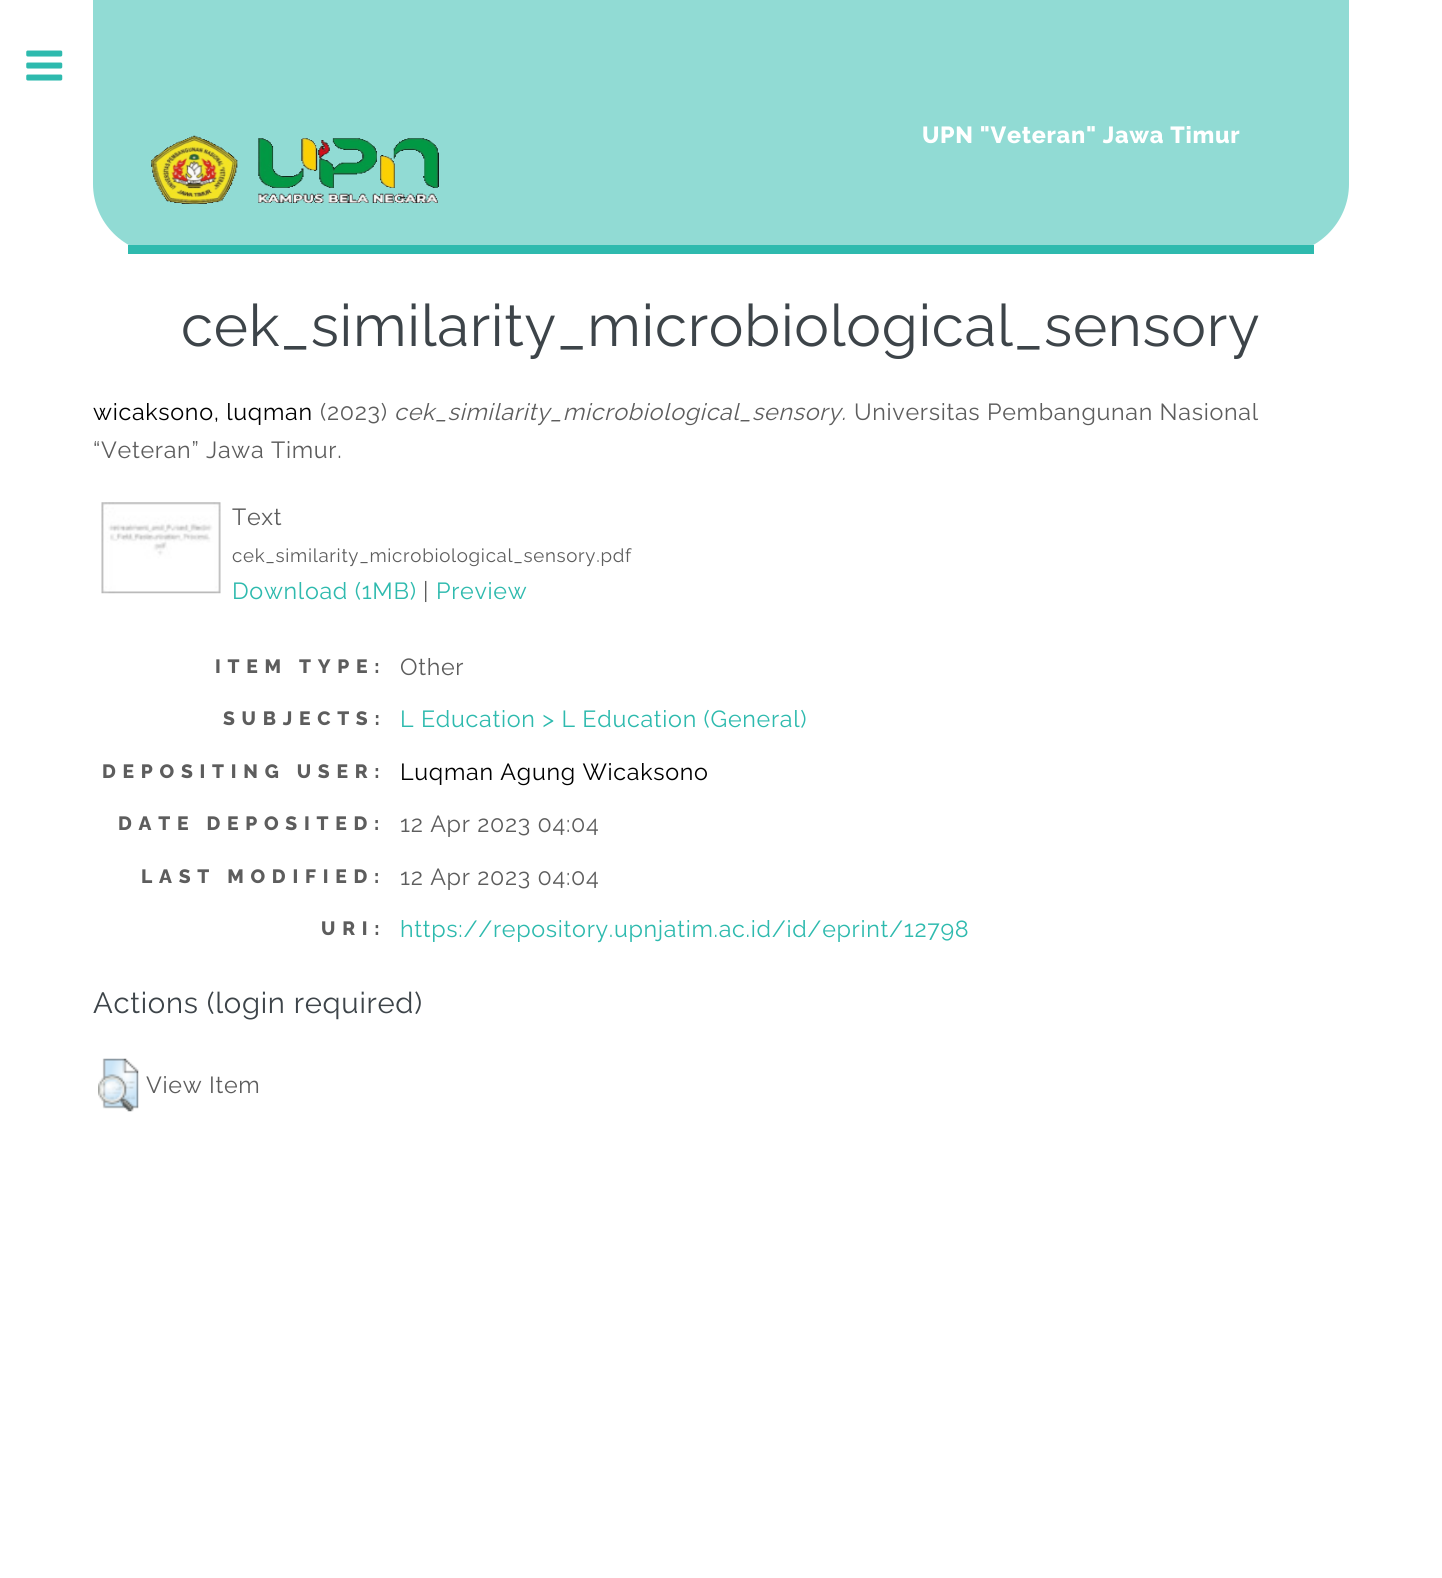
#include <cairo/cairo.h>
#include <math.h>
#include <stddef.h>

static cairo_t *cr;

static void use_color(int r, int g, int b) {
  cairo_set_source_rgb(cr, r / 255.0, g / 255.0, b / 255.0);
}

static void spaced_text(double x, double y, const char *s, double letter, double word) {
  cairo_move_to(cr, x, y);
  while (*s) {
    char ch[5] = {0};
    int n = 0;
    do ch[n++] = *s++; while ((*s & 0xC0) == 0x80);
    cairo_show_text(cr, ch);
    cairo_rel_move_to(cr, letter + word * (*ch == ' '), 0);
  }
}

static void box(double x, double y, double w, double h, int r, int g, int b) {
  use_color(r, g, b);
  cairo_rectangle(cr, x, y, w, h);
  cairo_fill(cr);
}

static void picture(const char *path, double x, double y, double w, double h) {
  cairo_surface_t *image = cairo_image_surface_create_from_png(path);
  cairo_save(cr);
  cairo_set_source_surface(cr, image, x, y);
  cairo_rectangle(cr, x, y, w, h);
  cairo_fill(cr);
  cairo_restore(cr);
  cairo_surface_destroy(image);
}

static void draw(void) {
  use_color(255, 255, 255);
  cairo_paint(cr);
  picture("img_01.png", 26, 50, 37, 31);
  use_color(145, 219, 212);
  cairo_new_path(cr);
  cairo_move_to(cr, 93, 0);
  cairo_line_to(cr, 1349, 0);
  cairo_line_to(cr, 1349, 184);
  cairo_curve_to(cr, 1349, 222.5, 1317.5, 254, 1279, 254);
  cairo_line_to(cr, 163, 254);
  cairo_curve_to(cr, 124.5, 254, 93, 222.5, 93, 184);
  cairo_close_path(cr);
  cairo_fill(cr);
  box(128, 245, 1186, 9, 46, 186, 174);
  picture("img_02.png", 151, 135, 288, 69);
  picture("img_03.png", 101, 502, 120, 92);
  picture("img_04.png", 98, 1058, 41, 54);
  cairo_select_font_face(cr, "Raleway ExtraBold", CAIRO_FONT_SLANT_NORMAL, CAIRO_FONT_WEIGHT_NORMAL);
  cairo_set_font_size(cr, 23.3);
  use_color(255, 255, 255);
  spaced_text(922, 143, "UPN \"Veteran\" Jawa Timur", 0.7, 0);
  cairo_select_font_face(cr, "Raleway", CAIRO_FONT_SLANT_NORMAL, CAIRO_FONT_WEIGHT_NORMAL);
  cairo_set_font_size(cr, 58.3);
  use_color(61, 68, 73);
  spaced_text(181, 346, "cek_similarity_microbiological_sensory", 0.7, 0);
  cairo_set_font_size(cr, 23.3);
  use_color(0, 0, 0);
  spaced_text(93, 420, "wicaksono, luqman", 0.7, 0);
  use_color(93, 93, 93);
  spaced_text(320, 420, "(2023)", 0.7, 0);
  cairo_select_font_face(cr, "Raleway", CAIRO_FONT_SLANT_ITALIC, CAIRO_FONT_WEIGHT_NORMAL);
  spaced_text(394, 420, "cek_similarity_microbiological_sensory.", 0.7, 0);
  cairo_select_font_face(cr, "Raleway", CAIRO_FONT_SLANT_NORMAL, CAIRO_FONT_WEIGHT_NORMAL);
  spaced_text(854, 420, "Universitas Pembangunan Nasional", 0.7, 0);
  spaced_text(93, 458, "“Veteran” Jawa Timur.", 0.7, 0);
  spaced_text(232, 525, "Text", 0.7, 0);
  cairo_set_font_size(cr, 18.7);
  spaced_text(232, 562, "cek_similarity_microbiological_sensory.pdf", 0.7, 0);
  cairo_set_font_size(cr, 23.3);
  use_color(46, 186, 174);
  spaced_text(232, 599, "Download (1MB)", 0.7, 0);
  use_color(93, 93, 93);
  spaced_text(423, 599, "|", 0.7, 0);
  use_color(46, 186, 174);
  spaced_text(436, 599, "Preview", 0.7, 0);
  cairo_select_font_face(cr, "Raleway ExtraBold", CAIRO_FONT_SLANT_NORMAL, CAIRO_FONT_WEIGHT_NORMAL);
  cairo_set_font_size(cr, 19.25);
  use_color(93, 93, 93);
  spaced_text(215, 673, "ITEM TYPE:", 6.75, 0);
  cairo_select_font_face(cr, "Raleway", CAIRO_FONT_SLANT_NORMAL, CAIRO_FONT_WEIGHT_NORMAL);
  cairo_set_font_size(cr, 23.3);
  spaced_text(400, 675, "Other", 0.7, 0);
  cairo_select_font_face(cr, "Raleway ExtraBold", CAIRO_FONT_SLANT_NORMAL, CAIRO_FONT_WEIGHT_NORMAL);
  cairo_set_font_size(cr, 19.25);
  spaced_text(223, 725, "SUBJECTS:", 6.75, 0);
  cairo_select_font_face(cr, "Raleway", CAIRO_FONT_SLANT_NORMAL, CAIRO_FONT_WEIGHT_NORMAL);
  cairo_set_font_size(cr, 23.3);
  use_color(46, 186, 174);
  spaced_text(400, 727, "L Education > L Education (General)", 0.7, 0);
  cairo_select_font_face(cr, "Raleway ExtraBold", CAIRO_FONT_SLANT_NORMAL, CAIRO_FONT_WEIGHT_NORMAL);
  cairo_set_font_size(cr, 19.25);
  use_color(93, 93, 93);
  spaced_text(102, 778, "DEPOSITING USER:", 6.75, 0);
  cairo_select_font_face(cr, "Raleway", CAIRO_FONT_SLANT_NORMAL, CAIRO_FONT_WEIGHT_NORMAL);
  cairo_set_font_size(cr, 23.3);
  use_color(0, 0, 0);
  spaced_text(400, 780, "Luqman Agung Wicaksono", 0.7, 0);
  cairo_select_font_face(cr, "Raleway ExtraBold", CAIRO_FONT_SLANT_NORMAL, CAIRO_FONT_WEIGHT_NORMAL);
  cairo_set_font_size(cr, 19.25);
  use_color(93, 93, 93);
  spaced_text(118, 830, "DATE DEPOSITED:", 6.75, 0);
  cairo_select_font_face(cr, "Raleway", CAIRO_FONT_SLANT_NORMAL, CAIRO_FONT_WEIGHT_NORMAL);
  cairo_set_font_size(cr, 23.3);
  spaced_text(400, 832, "12 Apr 2023 04:04", 0.7, 0);
  cairo_select_font_face(cr, "Raleway ExtraBold", CAIRO_FONT_SLANT_NORMAL, CAIRO_FONT_WEIGHT_NORMAL);
  cairo_set_font_size(cr, 19.25);
  spaced_text(141, 883, "LAST MODIFIED:", 6.75, 0);
  cairo_select_font_face(cr, "Raleway", CAIRO_FONT_SLANT_NORMAL, CAIRO_FONT_WEIGHT_NORMAL);
  cairo_set_font_size(cr, 23.3);
  spaced_text(400, 885, "12 Apr 2023 04:04", 0.7, 0);
  cairo_select_font_face(cr, "Raleway ExtraBold", CAIRO_FONT_SLANT_NORMAL, CAIRO_FONT_WEIGHT_NORMAL);
  cairo_set_font_size(cr, 19.25);
  spaced_text(321, 935, "URI:", 6.75, 0);
  cairo_select_font_face(cr, "Raleway", CAIRO_FONT_SLANT_NORMAL, CAIRO_FONT_WEIGHT_NORMAL);
  cairo_set_font_size(cr, 23.3);
  use_color(46, 186, 174);
  spaced_text(400, 937, "https://repository.upnjatim.ac.id/id/eprint/12798", 0.7, 0);
  cairo_set_font_size(cr, 29.25);
  use_color(61, 68, 73);
  spaced_text(93, 1013, "Actions (login required)", 0.7, 0);
  cairo_set_font_size(cr, 23.3);
  use_color(93, 93, 93);
  spaced_text(146, 1093, "View Item", 0.7, 0);
}

int main(void) {
  cairo_surface_t *surface = cairo_image_surface_create(CAIRO_FORMAT_RGB24, 1442, 1578);
  cr = cairo_create(surface);
  cairo_font_options_t *options = cairo_font_options_create();
  cairo_font_options_set_hint_metrics(options, CAIRO_HINT_METRICS_OFF);
  cairo_font_options_set_hint_style(options, CAIRO_HINT_STYLE_NONE);
  cairo_set_font_options(cr, options);
  cairo_set_miter_limit(cr, 4);
  draw();
  cairo_surface_write_to_png(surface, "out.png");
  cairo_font_options_destroy(options);
  cairo_destroy(cr);
  cairo_surface_destroy(surface);
  return 0;
}
